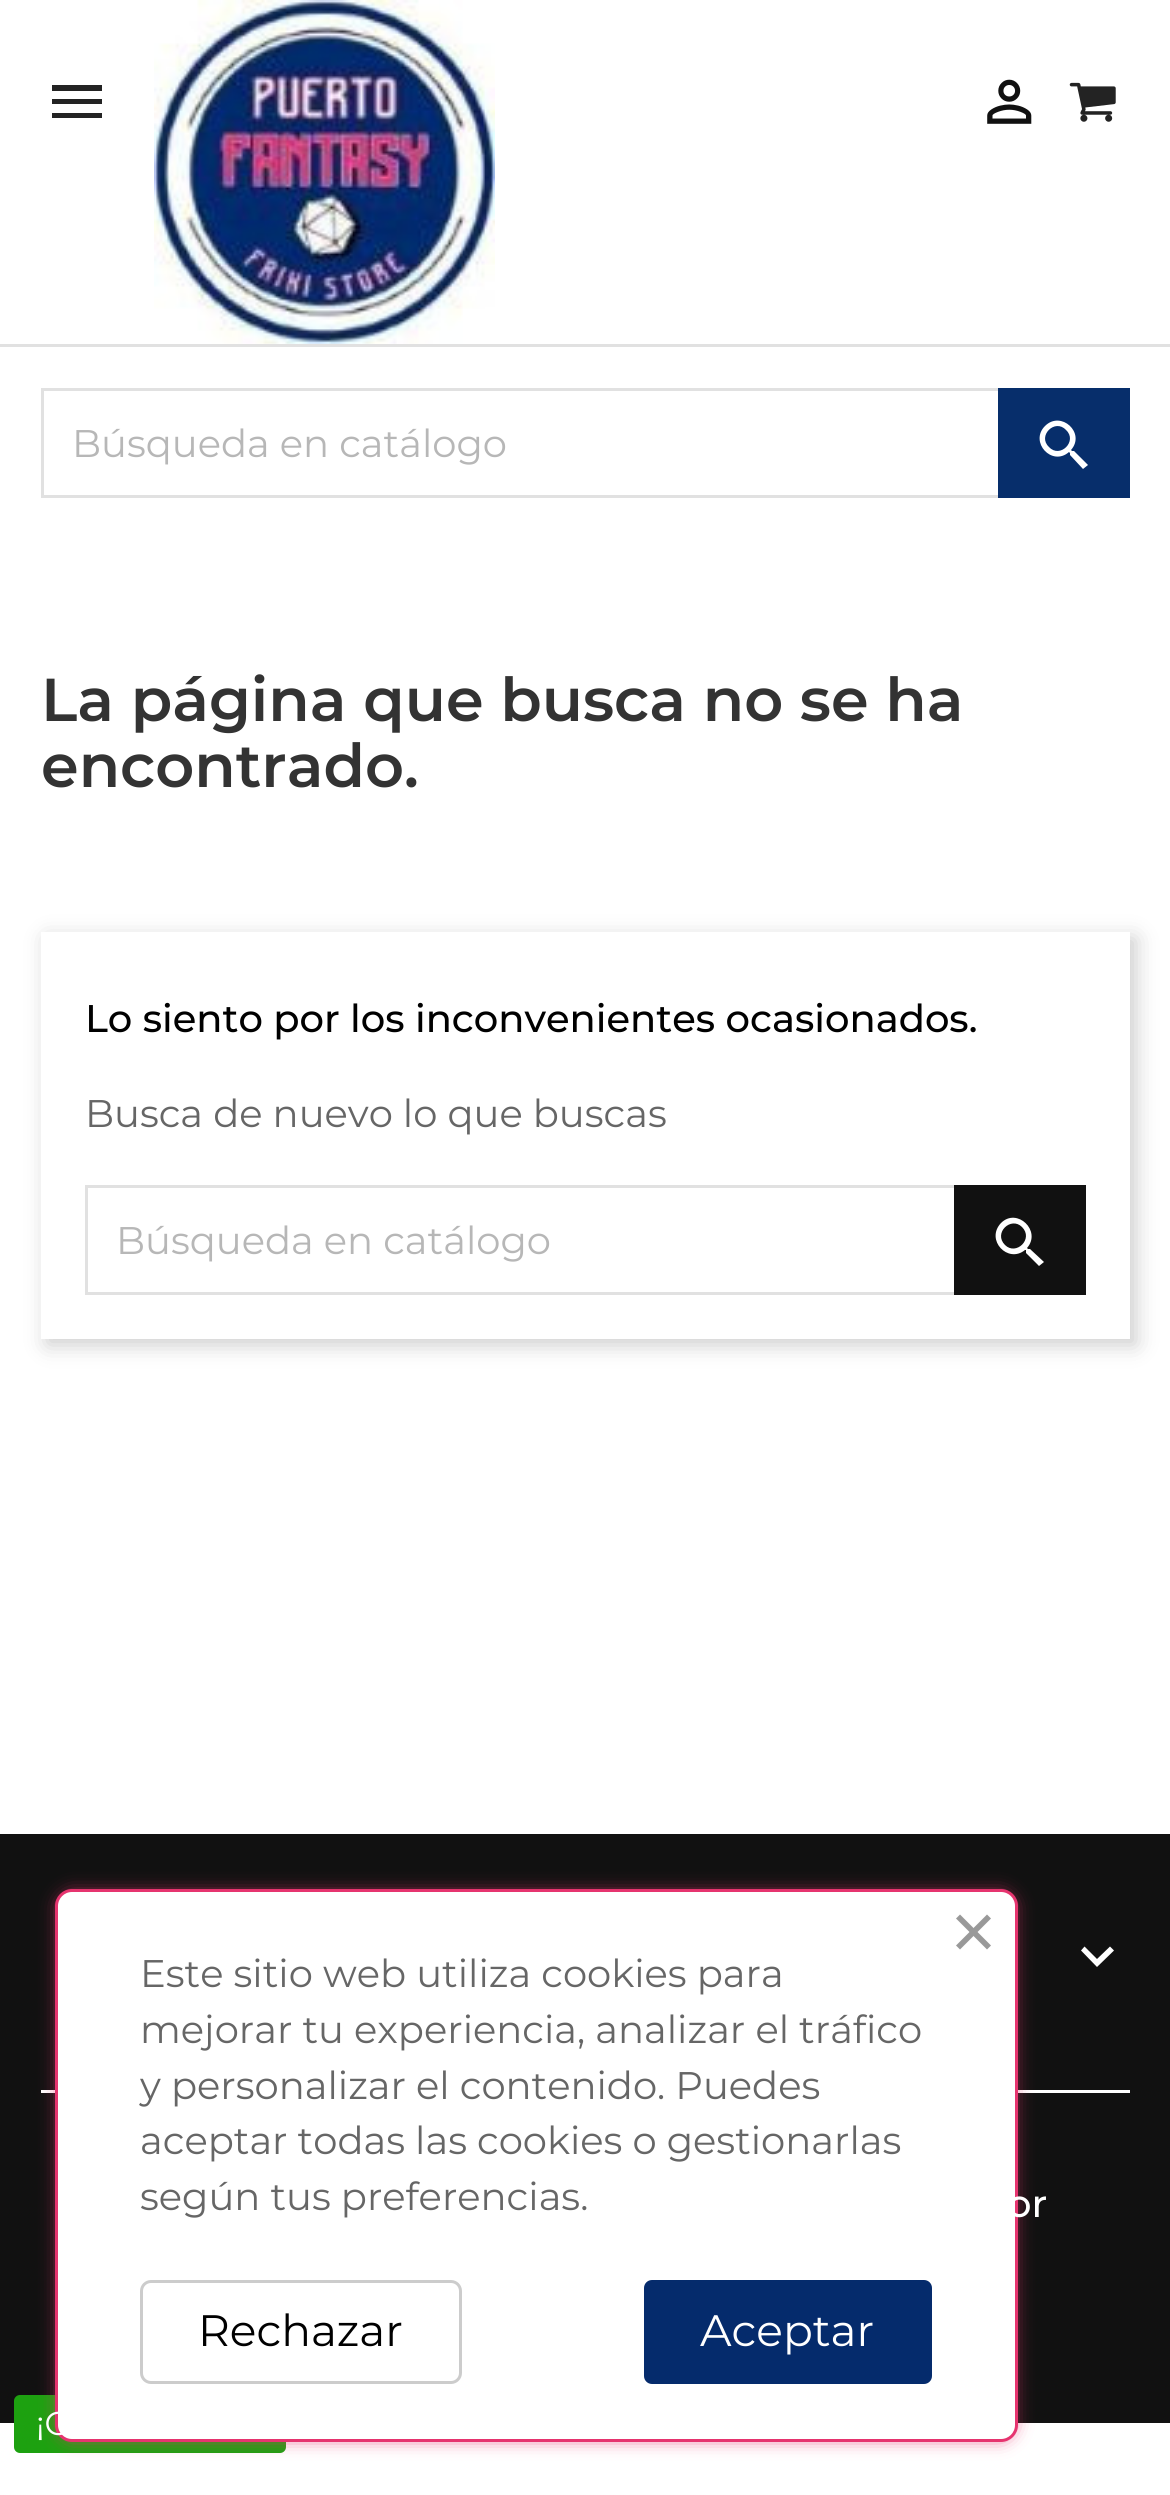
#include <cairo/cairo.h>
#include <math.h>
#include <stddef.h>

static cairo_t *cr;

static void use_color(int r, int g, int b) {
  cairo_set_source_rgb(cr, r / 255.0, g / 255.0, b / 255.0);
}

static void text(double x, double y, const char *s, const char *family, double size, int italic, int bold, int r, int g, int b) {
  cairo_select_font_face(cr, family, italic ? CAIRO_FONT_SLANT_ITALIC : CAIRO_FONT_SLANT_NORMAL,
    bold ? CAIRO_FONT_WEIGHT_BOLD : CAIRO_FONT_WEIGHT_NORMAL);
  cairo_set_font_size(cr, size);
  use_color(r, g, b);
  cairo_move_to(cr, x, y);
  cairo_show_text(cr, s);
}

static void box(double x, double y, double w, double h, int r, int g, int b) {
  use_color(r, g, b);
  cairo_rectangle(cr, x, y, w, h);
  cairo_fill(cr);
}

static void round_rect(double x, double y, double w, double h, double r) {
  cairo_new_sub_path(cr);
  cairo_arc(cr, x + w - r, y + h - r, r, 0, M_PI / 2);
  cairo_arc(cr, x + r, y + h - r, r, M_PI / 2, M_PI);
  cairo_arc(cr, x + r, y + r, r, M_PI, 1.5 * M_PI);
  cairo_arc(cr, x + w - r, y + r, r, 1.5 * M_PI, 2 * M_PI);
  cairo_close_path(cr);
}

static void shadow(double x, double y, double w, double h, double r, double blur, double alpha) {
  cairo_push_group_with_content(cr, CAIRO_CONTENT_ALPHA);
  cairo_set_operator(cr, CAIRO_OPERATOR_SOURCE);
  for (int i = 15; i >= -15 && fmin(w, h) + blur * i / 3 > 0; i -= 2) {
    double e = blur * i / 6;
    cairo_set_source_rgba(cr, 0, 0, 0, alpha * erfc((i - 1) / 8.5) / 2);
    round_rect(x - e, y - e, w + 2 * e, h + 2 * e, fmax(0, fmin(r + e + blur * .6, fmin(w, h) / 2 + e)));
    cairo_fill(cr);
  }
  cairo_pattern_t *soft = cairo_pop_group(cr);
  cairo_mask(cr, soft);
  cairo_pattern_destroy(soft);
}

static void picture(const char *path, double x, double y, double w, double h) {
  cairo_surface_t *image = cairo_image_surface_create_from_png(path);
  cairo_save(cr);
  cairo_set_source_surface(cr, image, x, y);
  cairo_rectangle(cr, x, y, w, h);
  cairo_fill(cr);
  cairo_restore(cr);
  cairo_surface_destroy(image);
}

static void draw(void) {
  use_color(255, 255, 255);
  cairo_paint(cr);
  box(0, 344, 1170, 3, 225, 225, 225);
  use_color(35, 35, 35);
  cairo_new_path(cr);
  cairo_move_to(cr, 52, 85);
  cairo_line_to(cr, 102, 85);
  cairo_line_to(cr, 102, 91);
  cairo_line_to(cr, 52, 91);
  cairo_close_path(cr);
  cairo_move_to(cr, 52, 104);
  cairo_line_to(cr, 52, 99);
  cairo_line_to(cr, 102, 99);
  cairo_line_to(cr, 102, 104);
  cairo_close_path(cr);
  cairo_move_to(cr, 52, 118);
  cairo_line_to(cr, 52, 113);
  cairo_line_to(cr, 102, 113);
  cairo_line_to(cr, 102, 118);
  cairo_close_path(cr);
  cairo_fill(cr);
  picture("img_01.png", 154, 0, 341, 344);
  picture("img_02.png", 987, 79, 45, 45);
  picture("img_03.png", 1069, 82, 47, 40);
  cairo_rectangle(cr, 42.5, 389.5, 1086, 107);
  use_color(225, 225, 225);
  cairo_set_line_width(cr, 3);
  cairo_stroke(cr);
  box(998, 388, 132, 110, 7, 46, 107);
  use_color(255, 255, 255);
  cairo_new_path(cr);
  cairo_move_to(cr, 1049, 447);
  cairo_curve_to(cr, 1060, 459, 1078, 441, 1066, 430);
  cairo_curve_to(cr, 1055, 418, 1037, 436, 1049, 447);
  cairo_close_path(cr);
  cairo_move_to(cr, 1074, 451);
  cairo_line_to(cr, 1088, 465);
  cairo_line_to(cr, 1083, 469);
  cairo_line_to(cr, 1070, 455);
  cairo_line_to(cr, 1070, 453);
  cairo_line_to(cr, 1069, 452);
  cairo_curve_to(cr, 1052, 467, 1029, 442, 1045, 426);
  cairo_curve_to(cr, 1061, 410, 1086, 433, 1071, 450);
  cairo_line_to(cr, 1072, 451);
  cairo_close_path(cr);
  cairo_fill(cr);
  use_color(0, 0, 0);
  shadow(47, 938, 1089, 407, 0, 11, 0.2);
  box(41, 932, 1089, 407, 255, 255, 255);
  cairo_rectangle(cr, 86.5, 1186.5, 998, 107);
  use_color(225, 225, 225);
  cairo_stroke(cr);
  box(954, 1185, 132, 110, 17, 17, 17);
  use_color(255, 255, 255);
  cairo_new_path(cr);
  cairo_move_to(cr, 1005, 1245);
  cairo_curve_to(cr, 1016, 1256, 1034, 1239, 1022, 1227);
  cairo_curve_to(cr, 1011, 1216, 993, 1233, 1005, 1245);
  cairo_close_path(cr);
  cairo_move_to(cr, 1030, 1249);
  cairo_line_to(cr, 1044, 1262);
  cairo_line_to(cr, 1039, 1266);
  cairo_line_to(cr, 1026, 1253);
  cairo_line_to(cr, 1026, 1250);
  cairo_line_to(cr, 1025, 1250);
  cairo_curve_to(cr, 1008, 1264, 985, 1240, 1001, 1223);
  cairo_curve_to(cr, 1017, 1207, 1042, 1231, 1027, 1248);
  cairo_line_to(cr, 1028, 1249);
  cairo_close_path(cr);
  cairo_fill(cr);
  box(0, 1834, 1170, 589, 17, 17, 17);
  box(41, 2090, 1089, 3, 255, 255, 255);
  cairo_new_path(cr);
  cairo_move_to(cr, 1084.5, 1946.5);
  cairo_line_to(cr, 1097, 1959);
  cairo_line_to(cr, 1110, 1946.5);
  cairo_line_to(cr, 1114, 1950.5);
  cairo_line_to(cr, 1097, 1967);
  cairo_line_to(cr, 1081, 1950.5);
  cairo_close_path(cr);
  cairo_fill(cr);
  use_color(29, 161, 16);
  round_rect(14, 2395, 272, 58, 6);
  cairo_fill(cr);
  use_color(230, 52, 111);
  shadow(61, 1895, 951, 542, 11, 9.5, 1);
  use_color(255, 255, 255);
  round_rect(56.5, 1890.5, 960, 550, 15.5);
  cairo_fill_preserve(cr);
  use_color(230, 52, 111);
  cairo_stroke(cr);
  use_color(153, 153, 153);
  cairo_new_path(cr);
  cairo_move_to(cr, 956, 1945.5);
  cairo_line_to(cr, 987, 1914.5);
  cairo_line_to(cr, 991, 1918.5);
  cairo_line_to(cr, 960, 1949.5);
  cairo_close_path(cr);
  cairo_fill(cr);
  cairo_new_path(cr);
  cairo_move_to(cr, 960, 1914.5);
  cairo_line_to(cr, 991, 1945.5);
  cairo_line_to(cr, 987, 1949.5);
  cairo_line_to(cr, 956, 1918.5);
  cairo_close_path(cr);
  cairo_fill(cr);
  round_rect(141.5, 2281.5, 319, 101, 9.5);
  use_color(204, 204, 204);
  cairo_stroke(cr);
  use_color(5, 43, 108);
  round_rect(645.5, 2281.5, 285, 101, 6.5);
  cairo_fill_preserve(cr);
  cairo_stroke(cr);
  text(72, 457, "Búsqueda en catálogo", "Montserrat", 38.5, 0, 0, 183, 183, 183);
  text(41, 721, "La página que busca no se ha", "Montserrat SemiBold", 60.5, 0, 0, 51, 51, 51);
  text(41, 787, "encontrado.", "Montserrat SemiBold", 60.5, 0, 0, 51, 51, 51);
  text(85, 1032, "Lo siento por los inconvenientes ocasionados.", "Montserrat Medium", 38.5, 0, 0, 0, 0, 0);
  text(85, 1127, "Busca de nuevo lo que buscas", "Montserrat", 38.5, 0, 0, 102, 102, 102);
  text(116, 1254, "Búsqueda en catálogo", "Montserrat", 38.5, 0, 0, 183, 183, 183);
  text(1007, 2217, "or", "Montserrat Medium", 38.5, 0, 0, 255, 255, 255);
  text(36, 2435, "¡C", "Montserrat", 33, 0, 0, 255, 255, 255);
  text(140, 1987, "Este sitio web utiliza cookies para", "Montserrat", 38.5, 0, 0, 102, 102, 102);
  text(140, 2043, "mejorar tu experiencia, analizar el tráfico", "Montserrat", 38.5, 0, 0, 102, 102, 102);
  text(140, 2099, "y personalizar el contenido. Puedes", "Montserrat", 38.5, 0, 0, 102, 102, 102);
  text(140, 2154, "aceptar todas las cookies o gestionarlas", "Montserrat", 38.5, 0, 0, 102, 102, 102);
  text(140, 2210, "según tus preferencias.", "Montserrat", 38.5, 0, 0, 102, 102, 102);
  text(198, 2346, "Rechazar", "Montserrat", 44, 0, 0, 0, 0, 0);
  text(700, 2346, "Aceptar", "Montserrat", 44, 0, 0, 255, 255, 255);
}

int main(void) {
  cairo_surface_t *surface = cairo_image_surface_create(CAIRO_FORMAT_RGB24, 1170, 2495);
  cr = cairo_create(surface);
  cairo_font_options_t *options = cairo_font_options_create();
  cairo_font_options_set_hint_metrics(options, CAIRO_HINT_METRICS_OFF);
  cairo_font_options_set_hint_style(options, CAIRO_HINT_STYLE_NONE);
  cairo_set_font_options(cr, options);
  cairo_set_miter_limit(cr, 4);
  draw();
  cairo_surface_write_to_png(surface, "out.png");
  cairo_font_options_destroy(options);
  cairo_destroy(cr);
  cairo_surface_destroy(surface);
  return 0;
}
